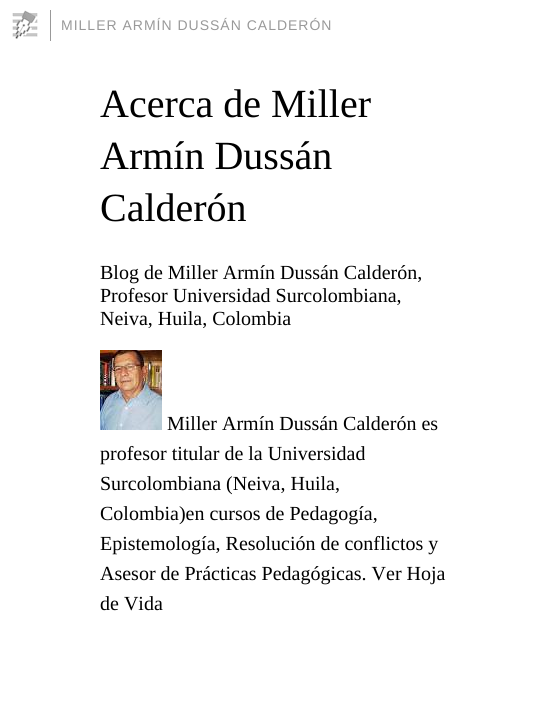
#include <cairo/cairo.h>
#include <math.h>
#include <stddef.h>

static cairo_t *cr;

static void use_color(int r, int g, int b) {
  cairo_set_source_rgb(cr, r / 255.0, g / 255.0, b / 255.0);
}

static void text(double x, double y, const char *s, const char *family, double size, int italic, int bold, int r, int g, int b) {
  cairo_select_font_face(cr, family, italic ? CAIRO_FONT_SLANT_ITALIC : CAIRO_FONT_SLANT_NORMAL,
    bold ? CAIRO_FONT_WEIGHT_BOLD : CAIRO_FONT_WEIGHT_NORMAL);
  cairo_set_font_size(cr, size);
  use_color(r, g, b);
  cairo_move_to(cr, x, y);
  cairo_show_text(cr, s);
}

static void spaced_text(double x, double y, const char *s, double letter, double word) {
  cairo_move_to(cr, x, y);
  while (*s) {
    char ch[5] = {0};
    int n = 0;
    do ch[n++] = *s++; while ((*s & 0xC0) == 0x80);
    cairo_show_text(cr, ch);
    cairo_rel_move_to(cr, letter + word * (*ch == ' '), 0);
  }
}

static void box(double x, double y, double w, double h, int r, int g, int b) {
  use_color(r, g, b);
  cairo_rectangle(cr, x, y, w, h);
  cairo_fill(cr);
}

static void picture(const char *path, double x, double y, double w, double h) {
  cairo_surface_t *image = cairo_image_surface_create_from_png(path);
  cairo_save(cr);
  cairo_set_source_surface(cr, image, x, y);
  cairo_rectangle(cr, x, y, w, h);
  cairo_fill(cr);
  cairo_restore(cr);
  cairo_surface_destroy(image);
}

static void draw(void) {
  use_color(255, 255, 255);
  cairo_paint(cr);
  picture("img_01.png", 12, 10, 26, 29);
  box(50, 10, 1, 31, 153, 153, 153);
  picture("img_02.png", 100, 350, 62, 80);
  cairo_select_font_face(cr, "Liberation Sans", CAIRO_FONT_SLANT_NORMAL, CAIRO_FONT_WEIGHT_NORMAL);
  cairo_set_font_size(cr, 14);
  spaced_text(61, 30, "MILLER ARMÍN DUSSÁN CALDERÓN", 1, 0);
  text(100, 117, "Acerca de Miller", "Liberation Serif", 40, 0, 0, 0, 0, 0);
  text(100, 169, "Armín Dussán", "Liberation Serif", 40, 0, 0, 0, 0, 0);
  text(100, 221, "Calderón", "Liberation Serif", 40, 0, 0, 0, 0, 0);
  text(100, 279, "Blog de Miller Armín Dussán Calderón,", "Liberation Serif", 20, 0, 0, 0, 0, 0);
  text(100, 302, "Profesor Universidad Surcolombiana,", "Liberation Serif", 20, 0, 0, 0, 0, 0);
  text(100, 325, "Neiva, Huila, Colombia", "Liberation Serif", 20, 0, 0, 0, 0, 0);
  text(167, 430, "Miller Armín Dussán Calderón es", "Liberation Serif", 20, 0, 0, 0, 0, 0);
  text(100, 460, "profesor titular de la Universidad", "Liberation Serif", 20, 0, 0, 0, 0, 0);
  text(100, 490, "Surcolombiana (Neiva, Huila,", "Liberation Serif", 20, 0, 0, 0, 0, 0);
  text(100, 520, "Colombia)en cursos de Pedagogía,", "Liberation Serif", 20, 0, 0, 0, 0, 0);
  text(100, 550, "Epistemología, Resolución de conflictos y", "Liberation Serif", 20, 0, 0, 0, 0, 0);
  text(100, 580, "Asesor de Prácticas Pedagógicas. Ver Hoja", "Liberation Serif", 20, 0, 0, 0, 0, 0);
  text(100, 610, "de Vida", "Liberation Serif", 20, 0, 0, 0, 0, 0);
}

int main(void) {
  cairo_surface_t *surface = cairo_image_surface_create(CAIRO_FORMAT_RGB24, 547, 706);
  cr = cairo_create(surface);
  cairo_font_options_t *options = cairo_font_options_create();
  cairo_font_options_set_hint_metrics(options, CAIRO_HINT_METRICS_OFF);
  cairo_font_options_set_hint_style(options, CAIRO_HINT_STYLE_NONE);
  cairo_set_font_options(cr, options);
  cairo_set_miter_limit(cr, 4);
  draw();
  cairo_surface_write_to_png(surface, "out.png");
  cairo_font_options_destroy(options);
  cairo_destroy(cr);
  cairo_surface_destroy(surface);
  return 0;
}
